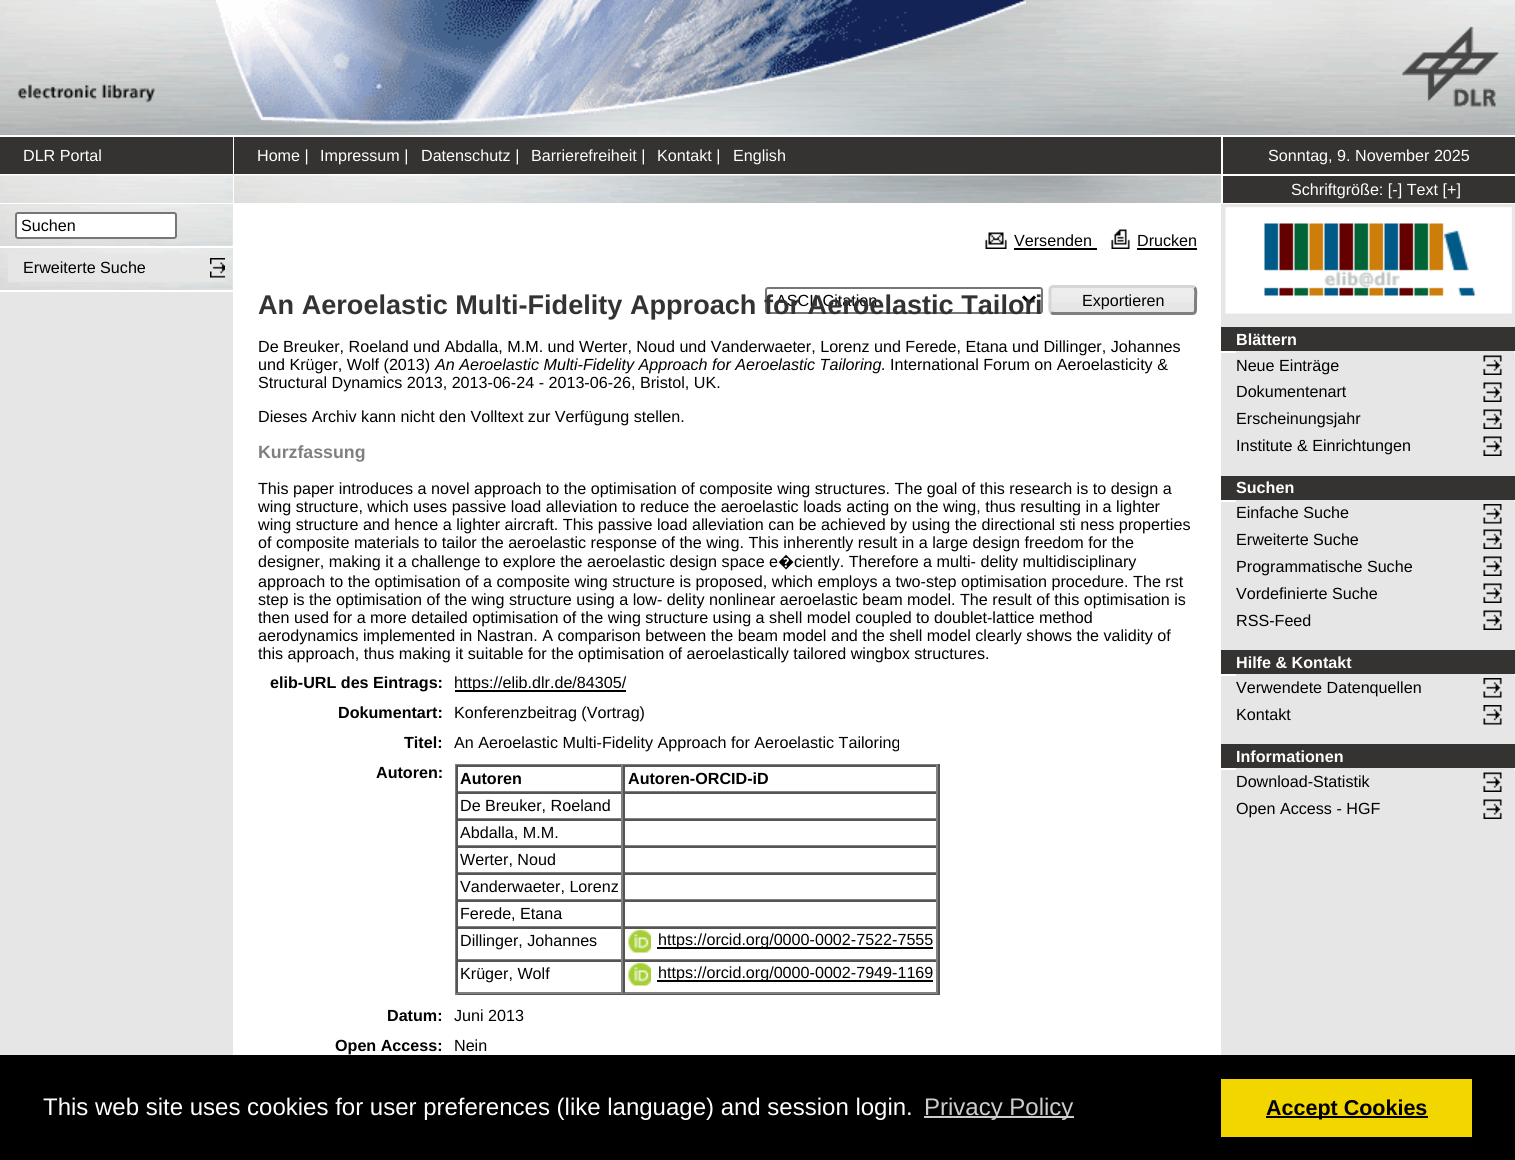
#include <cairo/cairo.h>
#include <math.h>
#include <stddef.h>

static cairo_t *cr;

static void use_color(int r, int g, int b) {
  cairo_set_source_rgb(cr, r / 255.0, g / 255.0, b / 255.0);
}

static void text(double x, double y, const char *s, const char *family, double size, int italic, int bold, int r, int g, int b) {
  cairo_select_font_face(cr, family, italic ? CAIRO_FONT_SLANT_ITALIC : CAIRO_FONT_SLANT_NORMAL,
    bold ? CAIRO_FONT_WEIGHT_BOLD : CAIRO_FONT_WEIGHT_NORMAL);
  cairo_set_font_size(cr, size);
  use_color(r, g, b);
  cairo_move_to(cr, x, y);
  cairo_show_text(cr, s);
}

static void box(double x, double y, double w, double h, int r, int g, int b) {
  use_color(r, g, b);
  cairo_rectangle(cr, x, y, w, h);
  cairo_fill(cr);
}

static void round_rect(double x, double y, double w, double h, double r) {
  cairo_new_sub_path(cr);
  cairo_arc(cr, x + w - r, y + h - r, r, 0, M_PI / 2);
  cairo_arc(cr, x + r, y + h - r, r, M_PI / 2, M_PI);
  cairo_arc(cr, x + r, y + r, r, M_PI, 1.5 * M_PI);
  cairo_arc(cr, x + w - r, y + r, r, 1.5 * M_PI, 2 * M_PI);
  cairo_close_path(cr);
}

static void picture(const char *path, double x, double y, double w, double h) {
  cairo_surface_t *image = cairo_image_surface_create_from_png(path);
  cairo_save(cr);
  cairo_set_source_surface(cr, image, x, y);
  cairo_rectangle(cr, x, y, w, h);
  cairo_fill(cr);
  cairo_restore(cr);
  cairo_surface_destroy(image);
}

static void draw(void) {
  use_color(255, 255, 255);
  cairo_paint(cr);
  picture("img_01.png", 0, 0, 1515, 135);
  picture("img_02.png", 17, 83, 138, 20);
  picture("img_03.png", 216, 0, 810, 125);
  picture("img_04.png", 1402, 26, 97, 81);
  box(0, 137, 233, 37, 53, 51, 49);
  box(234, 137, 987, 37, 53, 51, 49);
  box(1223, 137, 292, 37, 53, 51, 49);
  picture("img_05.png", 0, 175, 234, 28);
  box(233, 176, 1, 28, 255, 255, 255);
  picture("img_06.png", 234, 175, 987, 28);
  box(1223, 176, 292, 27, 53, 51, 49);
  box(0, 204, 233, 851, 230, 230, 230);
  picture("img_07.png", 0, 204, 233, 42);
  use_color(255, 255, 255);
  round_rect(16, 213, 160, 25, 2);
  cairo_fill_preserve(cr);
  use_color(118, 118, 118);
  cairo_stroke(cr);
  picture("img_08.png", 0, 248, 233, 42);
  box(0, 246, 233, 2, 255, 255, 255);
  box(0, 290, 233, 2, 255, 255, 255);
  box(8, 254, 217, 28, 230, 230, 230);
  picture("img_09.png", 210, 258, 15, 20);
  picture("img_10.png", 985, 232, 22, 17);
  box(1014, 248, 83, 2, 0, 0, 0);
  picture("img_11.png", 1111, 229, 19, 20);
  box(1137, 248, 60, 2, 0, 0, 0);
  round_rect(766, 288, 276, 25, 2);
  use_color(118, 118, 118);
  cairo_stroke(cr);
  cairo_new_path(cr);
  cairo_move_to(cr, 1023, 296.5);
  cairo_line_to(cr, 1029, 302.5);
  cairo_line_to(cr, 1035, 296.5);
  use_color(0, 0, 0);
  cairo_set_line_width(cr, 3);
  cairo_stroke(cr);
  use_color(230, 230, 230);
  round_rect(1049, 285, 148, 30, 5);
  cairo_fill(cr);
  picture("img_12.png", 1048, 288, 149, 15);
  cairo_new_path(cr);
  cairo_move_to(cr, 1194.5, 287.5);
  cairo_curve_to(cr, 1196.5, 289.5, 1195.5, 297.5, 1195.5, 300);
  cairo_line_to(cr, 1195.5, 307);
  cairo_curve_to(cr, 1195.5, 309.5, 1196, 313.5, 1192.5, 313.5);
  cairo_line_to(cr, 1053, 313.5);
  cairo_line_to(cr, 1051, 312.5);
  use_color(127, 127, 127);
  cairo_stroke(cr);
  cairo_new_path(cr);
  cairo_move_to(cr, 1051, 312.5);
  cairo_curve_to(cr, 1049, 310.5, 1050, 302.5, 1050, 300);
  cairo_line_to(cr, 1050, 293);
  cairo_curve_to(cr, 1050, 290.5, 1049.5, 286.5, 1053, 286.5);
  cairo_line_to(cr, 1192.5, 286.5);
  cairo_line_to(cr, 1194.5, 287.5);
  use_color(214, 214, 214);
  cairo_stroke(cr);
  box(455, 690, 171, 2, 0, 0, 0);
  box(455, 764, 484, 1, 128, 128, 128);
  box(938, 764, 2, 231, 85, 85, 85);
  box(455, 993, 484, 2, 85, 85, 85);
  box(455, 764, 2, 231, 128, 128, 128);
  box(456, 765, 482, 2, 85, 85, 85);
  box(621, 765, 2, 27, 128, 128, 128);
  box(456, 791, 167, 1, 128, 128, 128);
  box(456, 765, 2, 27, 85, 85, 85);
  box(936, 765, 2, 27, 128, 128, 128);
  box(623, 791, 315, 1, 128, 128, 128);
  box(623, 765, 2, 27, 85, 85, 85);
  box(456, 792, 482, 2, 85, 85, 85);
  box(621, 792, 2, 27, 128, 128, 128);
  box(456, 818, 167, 1, 128, 128, 128);
  box(456, 792, 2, 27, 85, 85, 85);
  box(936, 792, 2, 27, 128, 128, 128);
  box(623, 818, 315, 1, 128, 128, 128);
  box(623, 792, 2, 27, 85, 85, 85);
  box(456, 819, 482, 2, 85, 85, 85);
  box(621, 819, 2, 27, 128, 128, 128);
  box(456, 845, 167, 1, 128, 128, 128);
  box(456, 819, 2, 27, 85, 85, 85);
  box(936, 819, 2, 27, 128, 128, 128);
  box(623, 845, 315, 1, 128, 128, 128);
  box(623, 819, 2, 27, 85, 85, 85);
  box(456, 846, 482, 2, 85, 85, 85);
  box(621, 846, 2, 27, 128, 128, 128);
  box(456, 872, 167, 1, 128, 128, 128);
  box(456, 846, 2, 27, 85, 85, 85);
  box(936, 846, 2, 27, 128, 128, 128);
  box(623, 872, 315, 1, 128, 128, 128);
  box(623, 846, 2, 27, 85, 85, 85);
  box(456, 873, 482, 2, 85, 85, 85);
  box(621, 873, 2, 27, 128, 128, 128);
  box(456, 899, 167, 1, 128, 128, 128);
  box(456, 873, 2, 27, 85, 85, 85);
  box(936, 873, 2, 27, 128, 128, 128);
  box(623, 899, 315, 1, 128, 128, 128);
  box(623, 873, 2, 27, 85, 85, 85);
  box(456, 900, 482, 2, 85, 85, 85);
  box(621, 900, 2, 27, 128, 128, 128);
  box(456, 926, 167, 1, 128, 128, 128);
  box(456, 900, 2, 27, 85, 85, 85);
  box(936, 900, 2, 27, 128, 128, 128);
  box(623, 926, 315, 1, 128, 128, 128);
  box(623, 900, 2, 27, 85, 85, 85);
  box(456, 927, 482, 2, 85, 85, 85);
  box(621, 927, 2, 33, 128, 128, 128);
  box(456, 959, 167, 1, 128, 128, 128);
  box(456, 927, 2, 33, 85, 85, 85);
  box(936, 927, 2, 33, 128, 128, 128);
  box(623, 959, 315, 1, 128, 128, 128);
  box(623, 927, 2, 33, 85, 85, 85);
  picture("img_13.png", 628, 929, 23, 24);
  box(657, 947, 276, 2, 0, 0, 0);
  box(456, 960, 482, 2, 85, 85, 85);
  box(621, 960, 2, 33, 128, 128, 128);
  box(456, 992, 167, 2, 128, 128, 128);
  box(456, 960, 2, 33, 85, 85, 85);
  box(936, 960, 2, 33, 128, 128, 128);
  box(623, 992, 315, 2, 128, 128, 128);
  box(623, 960, 2, 33, 85, 85, 85);
  picture("img_13.png", 628, 962, 23, 24);
  box(657, 980, 276, 2, 0, 0, 0);
  box(1221, 204, 294, 851, 230, 230, 230);
  picture("img_14.png", 1225, 207, 287, 107);
  box(1221, 327, 294, 24, 53, 51, 49);
  box(1221, 351, 294, 2, 255, 255, 255);
  box(1236, 351, 278, 2, 230, 230, 230);
  picture("img_15.png", 1483, 355, 19, 20);
  picture("img_15.png", 1483, 382, 19, 20);
  picture("img_15.png", 1483, 409, 19, 20);
  picture("img_15.png", 1483, 436, 19, 20);
  box(1221, 476, 294, 24, 53, 51, 49);
  box(1221, 500, 294, 2, 255, 255, 255);
  box(1236, 500, 278, 2, 230, 230, 230);
  picture("img_16.png", 1483, 504, 19, 20);
  picture("img_15.png", 1483, 529, 19, 20);
  picture("img_15.png", 1483, 556, 19, 20);
  picture("img_15.png", 1483, 583, 19, 20);
  picture("img_15.png", 1483, 610, 19, 20);
  box(1221, 650, 294, 24, 53, 51, 49);
  box(1221, 674, 294, 2, 255, 255, 255);
  box(1236, 674, 278, 2, 230, 230, 230);
  picture("img_16.png", 1483, 678, 19, 20);
  picture("img_16.png", 1483, 705, 19, 20);
  box(1221, 744, 294, 24, 53, 51, 49);
  box(1221, 768, 294, 2, 255, 255, 255);
  box(1236, 768, 278, 2, 230, 230, 230);
  picture("img_15.png", 1483, 772, 19, 20);
  picture("img_15.png", 1483, 799, 19, 20);
  box(0, 1055, 1515, 105, 0, 0, 0);
  box(924, 1116, 150, 2, 204, 204, 204);
  box(1221, 1079, 251, 58, 241, 214, 0);
  box(1266, 1116, 162, 2, 0, 0, 0);
  text(23, 161, "DLR Portal", "Liberation Sans", 16.13, 0, 0, 255, 255, 255);
  text(257, 161, "Home |", "Liberation Sans", 16.13, 0, 0, 255, 255, 255);
  text(320, 161, "Impressum |", "Liberation Sans", 16.13, 0, 0, 255, 255, 255);
  text(421, 161, "Datenschutz |", "Liberation Sans", 16.13, 0, 0, 255, 255, 255);
  text(531, 161, "Barrierefreiheit |", "Liberation Sans", 16.13, 0, 0, 255, 255, 255);
  text(657, 161, "Kontakt |", "Liberation Sans", 16.13, 0, 0, 255, 255, 255);
  text(733, 161, "English", "Liberation Sans", 16.13, 0, 0, 255, 255, 255);
  text(1268, 161, "Sonntag, 9. November 2025", "Liberation Sans", 16.13, 0, 0, 255, 255, 255);
  text(1291, 195, "Schriftgröße: [-] Text [+]", "Liberation Sans", 16.13, 0, 0, 255, 255, 255);
  text(21, 231, "Suchen", "Liberation Sans", 16.13, 0, 0, 0, 0, 0);
  text(23, 273, "Erweiterte Suche", "Liberation Sans", 16.13, 0, 0, 0, 0, 0);
  text(1014, 246, "Versenden", "Liberation Sans", 16.13, 0, 0, 0, 0, 0);
  text(1137, 246, "Drucken", "Liberation Sans", 16.13, 0, 0, 0, 0, 0);
  text(776, 306, "ASCII Citation", "Liberation Sans", 16.13, 0, 0, 0, 0, 0);
  text(1082, 306, "Exportieren", "Liberation Sans", 16.13, 0, 0, 0, 0, 0);
  text(258, 352, "De Breuker, Roeland und Abdalla, M.M. und Werter, Noud und Vanderwaeter, Lorenz und Ferede, Etana und Dillinger, Johannes", "Liberation Sans", 16.13, 0, 0, 0, 0, 0);
  text(258, 370, "und Krüger, Wolf (2013)", "Liberation Sans", 16.13, 0, 0, 0, 0, 0);
  text(435, 370, "An Aeroelastic Multi-Fidelity Approach for Aeroelastic Tailoring.", "Liberation Sans", 16.13, 1, 0, 0, 0, 0);
  text(890, 370, "International Forum on Aeroelasticity &", "Liberation Sans", 16.13, 0, 0, 0, 0, 0);
  text(258, 388, "Structural Dynamics 2013, 2013-06-24 - 2013-06-26, Bristol, UK.", "Liberation Sans", 16.13, 0, 0, 0, 0, 0);
  text(258, 422, "Dieses Archiv kann nicht den Volltext zur Verfügung stellen.", "Liberation Sans", 16.13, 0, 0, 0, 0, 0);
  text(258, 458, "Kurzfassung", "Liberation Sans", 17.75, 0, 1, 128, 128, 128);
  text(258, 494, "This paper introduces a novel approach to the optimisation of composite wing structures. The goal of this research is to design a", "Liberation Sans", 16.13, 0, 0, 0, 0, 0);
  text(258, 512, "wing structure, which uses passive load alleviation to reduce the aeroelastic loads acting on the wing, thus resulting in a lighter", "Liberation Sans", 16.13, 0, 0, 0, 0, 0);
  text(258, 530, "wing structure and hence a lighter aircraft. This passive load alleviation can be achieved by using the directional sti ness properties", "Liberation Sans", 16.13, 0, 0, 0, 0, 0);
  text(258, 548, "of composite materials to tailor the aeroelastic response of the wing. This inherently result in a large design freedom for the", "Liberation Sans", 16.13, 0, 0, 0, 0, 0);
  text(258, 567, "designer, making it a challenge to explore the aeroelastic design space e", "Liberation Sans", 16.13, 0, 0, 0, 0, 0);
  text(778, 567, "�", "Noto Sans", 16.13, 0, 0, 0, 0, 0);
  text(794, 567, "ciently. Therefore a multi- delity multidisciplinary", "Liberation Sans", 16.13, 0, 0, 0, 0, 0);
  text(258, 587, "approach to the optimisation of a composite wing structure is proposed, which employs a two-step optimisation procedure. The rst", "Liberation Sans", 16.13, 0, 0, 0, 0, 0);
  text(258, 605, "step is the optimisation of the wing structure using a low- delity nonlinear aeroelastic beam model. The result of this optimisation is", "Liberation Sans", 16.13, 0, 0, 0, 0, 0);
  text(258, 623, "then used for a more detailed optimisation of the wing structure using a shell model coupled to doublet-lattice method", "Liberation Sans", 16.13, 0, 0, 0, 0, 0);
  text(258, 641, "aerodynamics implemented in Nastran. A comparison between the beam model and the shell model clearly shows the validity of", "Liberation Sans", 16.13, 0, 0, 0, 0, 0);
  text(258, 659, "this approach, thus making it suitable for the optimisation of aeroelastically tailored wingbox structures.", "Liberation Sans", 16.13, 0, 0, 0, 0, 0);
  text(270, 688, "elib-URL des Eintrags:", "Liberation Sans", 16.13, 0, 1, 0, 0, 0);
  text(454, 688, "https://elib.dlr.de/84305/", "Liberation Sans", 16.13, 0, 0, 0, 0, 0);
  text(338, 718, "Dokumentart:", "Liberation Sans", 16.13, 0, 1, 0, 0, 0);
  text(454, 718, "Konferenzbeitrag (Vortrag)", "Liberation Sans", 16.13, 0, 0, 0, 0, 0);
  text(404, 748, "Titel:", "Liberation Sans", 16.13, 0, 1, 0, 0, 0);
  text(454, 748, "An Aeroelastic Multi-Fidelity Approach for Aeroelastic Tailoring", "Liberation Sans", 16.13, 0, 0, 0, 0, 0);
  text(376, 778, "Autoren:", "Liberation Sans", 16.13, 0, 1, 0, 0, 0);
  text(460, 784, "Autoren", "Liberation Sans", 16.13, 0, 1, 0, 0, 0);
  text(628, 784, "Autoren-ORCID-iD", "Liberation Sans", 16.13, 0, 1, 0, 0, 0);
  text(460, 811, "De Breuker, Roeland", "Liberation Sans", 16.13, 0, 0, 0, 0, 0);
  text(460, 838, "Abdalla, M.M.", "Liberation Sans", 16.13, 0, 0, 0, 0, 0);
  text(460, 865, "Werter, Noud", "Liberation Sans", 16.13, 0, 0, 0, 0, 0);
  text(460, 892, "Vanderwaeter, Lorenz", "Liberation Sans", 16.13, 0, 0, 0, 0, 0);
  text(460, 919, "Ferede, Etana", "Liberation Sans", 16.13, 0, 0, 0, 0, 0);
  text(460, 946, "Dillinger, Johannes", "Liberation Sans", 16.13, 0, 0, 0, 0, 0);
  text(658, 945, "https://orcid.org/0000-0002-7522-7555", "Liberation Sans", 16.13, 0, 0, 0, 0, 0);
  text(460, 979, "Krüger, Wolf", "Liberation Sans", 16.13, 0, 0, 0, 0, 0);
  text(658, 978, "https://orcid.org/0000-0002-7949-1169", "Liberation Sans", 16.13, 0, 0, 0, 0, 0);
  text(387, 1021, "Datum:", "Liberation Sans", 16.13, 0, 1, 0, 0, 0);
  text(454, 1021, "Juni 2013", "Liberation Sans", 16.13, 0, 0, 0, 0, 0);
  text(335, 1051, "Open Access:", "Liberation Sans", 16.13, 0, 1, 0, 0, 0);
  text(454, 1051, "Nein", "Liberation Sans", 16.13, 0, 0, 0, 0, 0);
  text(258, 314, "An Aeroelastic Multi-Fidelity Approach for Aeroelastic Tailori", "Liberation Sans", 27.1, 0, 1, 53, 51, 49);
  text(1236, 345, "Blättern", "Liberation Sans", 16.13, 0, 1, 255, 255, 255);
  text(1236, 371, "Neue Einträge", "Liberation Sans", 16.13, 0, 0, 0, 0, 0);
  text(1236, 397, "Dokumentenart", "Liberation Sans", 16.13, 0, 0, 0, 0, 0);
  text(1236, 424, "Erscheinungsjahr", "Liberation Sans", 16.13, 0, 0, 0, 0, 0);
  text(1236, 451, "Institute & Einrichtungen", "Liberation Sans", 16.13, 0, 0, 0, 0, 0);
  text(1236, 493, "Suchen", "Liberation Sans", 16.13, 0, 1, 255, 255, 255);
  text(1236, 518, "Einfache Suche", "Liberation Sans", 16.13, 0, 0, 0, 0, 0);
  text(1236, 545, "Erweiterte Suche", "Liberation Sans", 16.13, 0, 0, 0, 0, 0);
  text(1236, 572, "Programmatische Suche", "Liberation Sans", 16.13, 0, 0, 0, 0, 0);
  text(1236, 599, "Vordefinierte Suche", "Liberation Sans", 16.13, 0, 0, 0, 0, 0);
  text(1236, 626, "RSS-Feed", "Liberation Sans", 16.13, 0, 0, 0, 0, 0);
  text(1236, 668, "Hilfe & Kontakt", "Liberation Sans", 16.13, 0, 1, 255, 255, 255);
  text(1236, 693, "Verwendete Datenquellen", "Liberation Sans", 16.13, 0, 0, 0, 0, 0);
  text(1236, 720, "Kontakt", "Liberation Sans", 16.13, 0, 0, 0, 0, 0);
  text(1236, 762, "Informationen", "Liberation Sans", 16.13, 0, 1, 255, 255, 255);
  text(1236, 787, "Download-Statistik", "Liberation Sans", 16.13, 0, 0, 0, 0, 0);
  text(1236, 814, "Open Access - HGF", "Liberation Sans", 16.13, 0, 0, 0, 0, 0);
  text(43, 1115, "This web site uses cookies for user preferences (like language) and session login.", "Liberation Sans", 24, 0, 0, 255, 255, 255);
  text(924, 1115, "Privacy Policy", "Liberation Sans", 24, 0, 0, 204, 204, 204);
  text(1266, 1115, "Accept Cookies", "Liberation Sans", 21.5, 0, 1, 0, 0, 0);
}

int main(void) {
  cairo_surface_t *surface = cairo_image_surface_create(CAIRO_FORMAT_RGB24, 1515, 1160);
  cr = cairo_create(surface);
  cairo_font_options_t *options = cairo_font_options_create();
  cairo_font_options_set_hint_metrics(options, CAIRO_HINT_METRICS_OFF);
  cairo_font_options_set_hint_style(options, CAIRO_HINT_STYLE_NONE);
  cairo_set_font_options(cr, options);
  cairo_set_miter_limit(cr, 4);
  draw();
  cairo_surface_write_to_png(surface, "out.png");
  cairo_font_options_destroy(options);
  cairo_destroy(cr);
  cairo_surface_destroy(surface);
  return 0;
}
